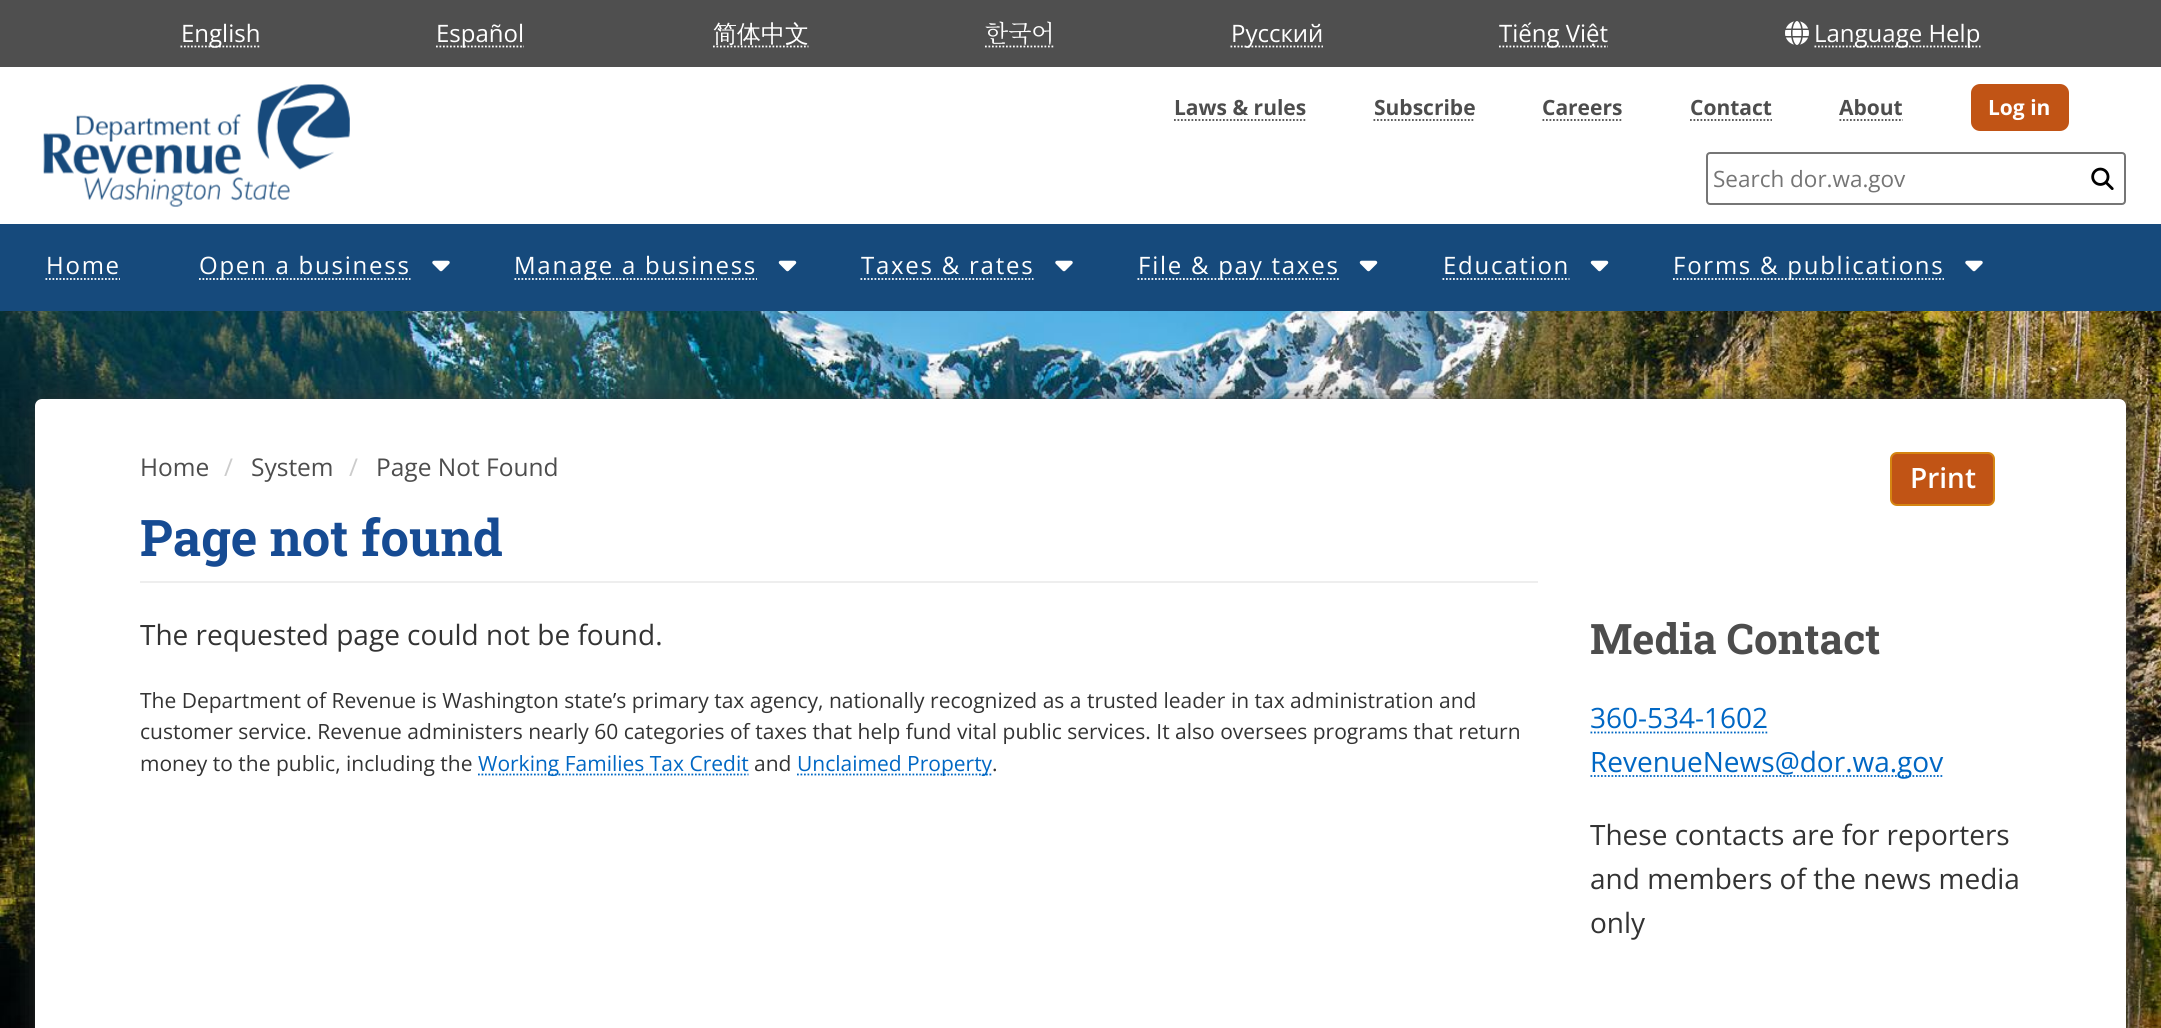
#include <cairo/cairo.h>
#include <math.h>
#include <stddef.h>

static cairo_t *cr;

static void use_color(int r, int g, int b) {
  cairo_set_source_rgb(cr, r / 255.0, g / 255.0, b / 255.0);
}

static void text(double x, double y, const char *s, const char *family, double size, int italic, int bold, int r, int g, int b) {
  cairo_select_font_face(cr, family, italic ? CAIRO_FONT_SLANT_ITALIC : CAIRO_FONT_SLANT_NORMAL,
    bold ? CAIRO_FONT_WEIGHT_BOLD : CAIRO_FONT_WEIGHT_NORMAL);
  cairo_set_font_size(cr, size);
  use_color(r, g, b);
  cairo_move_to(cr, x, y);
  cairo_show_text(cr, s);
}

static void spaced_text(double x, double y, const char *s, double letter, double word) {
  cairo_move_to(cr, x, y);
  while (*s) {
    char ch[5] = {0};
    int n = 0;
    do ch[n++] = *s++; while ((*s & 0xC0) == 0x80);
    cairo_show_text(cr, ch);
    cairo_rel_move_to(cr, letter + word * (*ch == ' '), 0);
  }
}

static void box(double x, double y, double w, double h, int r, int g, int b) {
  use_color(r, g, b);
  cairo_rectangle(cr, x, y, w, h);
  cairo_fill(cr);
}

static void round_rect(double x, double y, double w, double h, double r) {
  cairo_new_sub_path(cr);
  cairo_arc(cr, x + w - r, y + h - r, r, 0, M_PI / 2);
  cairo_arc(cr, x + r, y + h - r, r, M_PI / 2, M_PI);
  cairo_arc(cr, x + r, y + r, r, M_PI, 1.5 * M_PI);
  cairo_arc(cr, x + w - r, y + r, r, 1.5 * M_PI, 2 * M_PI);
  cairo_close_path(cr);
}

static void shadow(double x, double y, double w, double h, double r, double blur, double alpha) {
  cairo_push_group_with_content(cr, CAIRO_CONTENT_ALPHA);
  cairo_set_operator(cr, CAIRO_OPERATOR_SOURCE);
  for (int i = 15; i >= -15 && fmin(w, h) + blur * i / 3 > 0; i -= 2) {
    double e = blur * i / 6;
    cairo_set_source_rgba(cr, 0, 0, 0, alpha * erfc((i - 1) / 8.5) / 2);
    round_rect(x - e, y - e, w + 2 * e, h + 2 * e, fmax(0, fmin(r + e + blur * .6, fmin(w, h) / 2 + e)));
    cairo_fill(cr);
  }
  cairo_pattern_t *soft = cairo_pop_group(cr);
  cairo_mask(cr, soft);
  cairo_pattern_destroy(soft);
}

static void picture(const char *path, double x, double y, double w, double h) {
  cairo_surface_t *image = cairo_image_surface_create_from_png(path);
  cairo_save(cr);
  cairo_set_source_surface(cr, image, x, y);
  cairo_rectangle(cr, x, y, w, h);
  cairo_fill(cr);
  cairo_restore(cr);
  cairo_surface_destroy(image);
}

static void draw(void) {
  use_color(255, 255, 255);
  cairo_paint(cr);
  box(0, 0, 2161, 67, 79, 79, 79);
  cairo_new_path(cr);
  cairo_move_to(cr, 180.5, 46.5);
  cairo_line_to(cr, 260, 46.5);
  use_color(255, 255, 255);
  cairo_set_line_width(cr, 1.8);
  cairo_set_dash(cr, (double[]){1.75, 1.75}, 2, 0);
  cairo_stroke(cr);
  cairo_new_path(cr);
  cairo_move_to(cr, 436, 46.5);
  cairo_line_to(cr, 524, 46.5);
  cairo_stroke(cr);
  cairo_new_path(cr);
  cairo_move_to(cr, 713, 46.5);
  cairo_line_to(cr, 808.5, 46.5);
  cairo_stroke(cr);
  cairo_new_path(cr);
  cairo_move_to(cr, 985, 46.5);
  cairo_line_to(cr, 1054.5, 46.5);
  cairo_stroke(cr);
  cairo_new_path(cr);
  cairo_move_to(cr, 1230.5, 46.5);
  cairo_line_to(cr, 1323, 46.5);
  cairo_stroke(cr);
  cairo_new_path(cr);
  cairo_move_to(cr, 1499, 46.5);
  cairo_line_to(cr, 1608, 46.5);
  cairo_stroke(cr);
  picture("img_01.png", 1785, 21, 24, 24);
  cairo_new_path(cr);
  cairo_move_to(cr, 1814.5, 46.5);
  cairo_line_to(cr, 1980.5, 46.5);
  cairo_stroke(cr);
  picture("img_02.png", 43, 84, 307, 123);
  cairo_new_path(cr);
  cairo_move_to(cr, 1174, 120);
  cairo_line_to(cr, 1306.5, 120);
  use_color(77, 77, 77);
  cairo_stroke(cr);
  cairo_new_path(cr);
  cairo_move_to(cr, 1373.5, 120);
  cairo_line_to(cr, 1475, 120);
  cairo_stroke(cr);
  cairo_new_path(cr);
  cairo_move_to(cr, 1542.5, 120);
  cairo_line_to(cr, 1623, 120);
  cairo_stroke(cr);
  cairo_new_path(cr);
  cairo_move_to(cr, 1690, 120);
  cairo_line_to(cr, 1772, 120);
  cairo_stroke(cr);
  cairo_new_path(cr);
  cairo_move_to(cr, 1839.5, 120);
  cairo_line_to(cr, 1903, 120);
  cairo_stroke(cr);
  use_color(193, 84, 21);
  round_rect(1971, 84, 98, 47, 9);
  cairo_fill(cr);
  round_rect(1707, 153, 418, 51, 3);
  use_color(118, 118, 118);
  cairo_set_line_width(cr, 2);
  cairo_set_dash(cr, NULL, 0, 0);
  cairo_stroke(cr);
  picture("img_03.png", 2091, 167, 23, 23);
  box(0, 224, 2161, 87, 22, 74, 124);
  cairo_new_path(cr);
  cairo_move_to(cr, 45.5, 279);
  cairo_line_to(cr, 120, 279);
  use_color(255, 255, 255);
  cairo_set_line_width(cr, 1.8);
  cairo_set_dash(cr, (double[]){1.75, 1.75}, 2, 0);
  cairo_stroke(cr);
  cairo_new_path(cr);
  cairo_move_to(cr, 199, 279);
  cairo_line_to(cr, 410.5, 279);
  cairo_stroke(cr);
  picture("img_04.png", 432, 260, 18, 12);
  cairo_new_path(cr);
  cairo_move_to(cr, 514.5, 279);
  cairo_line_to(cr, 757, 279);
  cairo_stroke(cr);
  picture("img_05.png", 778, 260, 19, 12);
  cairo_new_path(cr);
  cairo_move_to(cr, 860.5, 279);
  cairo_line_to(cr, 1033.5, 279);
  cairo_stroke(cr);
  picture("img_04.png", 1055, 260, 18, 12);
  cairo_new_path(cr);
  cairo_move_to(cr, 1137.5, 279);
  cairo_line_to(cr, 1339, 279);
  cairo_stroke(cr);
  picture("img_05.png", 1359, 260, 19, 12);
  cairo_new_path(cr);
  cairo_move_to(cr, 1442.5, 279);
  cairo_line_to(cr, 1569.5, 279);
  cairo_stroke(cr);
  picture("img_05.png", 1590, 260, 19, 12);
  cairo_new_path(cr);
  cairo_move_to(cr, 1673, 279);
  cairo_line_to(cr, 1944, 279);
  cairo_stroke(cr);
  picture("img_04.png", 1965, 260, 18, 12);
  picture("img_06.png", 0, 311, 2161, 717);
  use_color(51, 51, 51);
  shadow(40, 404, 2088, 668, 5, 13, 1);
  use_color(255, 255, 255);
  round_rect(35, 399, 2091, 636, 7);
  cairo_fill(cr);
  use_color(193, 84, 21);
  round_rect(1891, 453, 103, 52, 6);
  cairo_fill_preserve(cr);
  use_color(213, 133, 18);
  cairo_set_line_width(cr, 2);
  cairo_set_dash(cr, NULL, 0, 0);
  cairo_stroke(cr);
  box(140, 581, 1398, 2, 238, 238, 238);
  cairo_new_path(cr);
  cairo_move_to(cr, 478, 774.5);
  cairo_line_to(cr, 748.5, 774.5);
  use_color(0, 103, 196);
  cairo_set_line_width(cr, 1.8);
  cairo_set_dash(cr, (double[]){1.75, 1.75}, 2, 0);
  cairo_stroke(cr);
  cairo_new_path(cr);
  cairo_move_to(cr, 797, 774.5);
  cairo_line_to(cr, 992, 774.5);
  cairo_stroke(cr);
  cairo_new_path(cr);
  cairo_move_to(cr, 1590.5, 732.5);
  cairo_line_to(cr, 1768.5, 732.5);
  cairo_stroke(cr);
  cairo_new_path(cr);
  cairo_move_to(cr, 1590.5, 776);
  cairo_line_to(cr, 1943.5, 776);
  cairo_stroke(cr);
  text(181, 42, "English", "Open Sans", 24, 0, 0, 255, 255, 255);
  text(436, 42, "Español", "Open Sans", 24, 0, 0, 255, 255, 255);
  text(713, 42, "简体中文", "WenQuanYi Zen Hei Medium", 24, 0, 0, 255, 255, 255);
  text(985, 42, "한국어", "Noto Serif KR", 24, 0, 0, 255, 255, 255);
  text(1231, 42, "Русский", "Open Sans", 24, 0, 0, 255, 255, 255);
  text(1499, 42, "Tiếng Việt", "Open Sans", 24, 0, 0, 255, 255, 255);
  text(1814, 42, "Language Help", "Open Sans", 24, 0, 0, 255, 255, 255);
  text(1174, 115, "Laws & rules", "Open Sans", 21, 0, 1, 77, 77, 77);
  text(1374, 115, "Subscribe", "Open Sans", 21, 0, 1, 77, 77, 77);
  text(1542, 115, "Careers", "Open Sans", 21, 0, 1, 77, 77, 77);
  text(1690, 115, "Contact", "Open Sans", 21, 0, 1, 77, 77, 77);
  text(1839, 115, "About", "Open Sans", 21, 0, 1, 77, 77, 77);
  text(1988, 115, "Log in", "Open Sans", 21, 0, 1, 255, 255, 255);
  text(1713, 187, "Search dor.wa.gov", "Open Sans", 22.5, 0, 0, 117, 117, 117);
  cairo_set_font_size(cr, 24);
  use_color(255, 255, 255);
  spaced_text(46, 274, "Home", 1.75, 0);
  spaced_text(199, 274, "Open a business", 1.75, 0);
  spaced_text(514, 274, "Manage a business", 1.75, 0);
  spaced_text(861, 274, "Taxes & rates", 1.75, 0);
  spaced_text(1138, 274, "File & pay taxes", 1.75, 0);
  spaced_text(1443, 274, "Education", 1.75, 0);
  spaced_text(1673, 274, "Forms & publications", 1.75, 0);
  text(140, 476, "Home", "Open Sans", 24.5, 0, 0, 77, 77, 77);
  text(224, 476, "/", "Open Sans", 24.5, 0, 0, 204, 204, 204);
  text(251, 476, "System", "Open Sans", 24.5, 0, 0, 77, 77, 77);
  text(349, 476, "/", "Open Sans", 24.5, 0, 0, 204, 204, 204);
  text(376, 476, "Page Not Found", "Open Sans", 24.5, 0, 0, 77, 77, 77);
  text(1910, 488, "Print", "Open Sans SemiBold", 28, 0, 0, 255, 255, 255);
  text(140, 556, "Page not found", "Roboto Slab", 50.5, 0, 1, 22, 75, 147);
  text(140, 645, "The requested page could not be found.", "Open Sans", 28, 0, 0, 51, 51, 51);
  text(140, 708, "The Department of Revenue is Washington state’s primary tax agency, nationally recognized as a trusted leader in tax administration and", "Open Sans", 21, 0, 0, 51, 51, 51);
  text(140, 739, "customer service. Revenue administers nearly 60 categories of taxes that help fund vital public services. It also oversees programs that return", "Open Sans", 21, 0, 0, 51, 51, 51);
  text(140, 771, "money to the public, including the", "Open Sans", 21, 0, 0, 51, 51, 51);
  text(478, 771, "Working Families Tax Credit", "Open Sans", 21, 0, 0, 0, 103, 196);
  text(754, 771, "and", "Open Sans", 21, 0, 0, 51, 51, 51);
  text(797, 771, "Unclaimed Property", "Open Sans", 21, 0, 0, 0, 103, 196);
  text(992, 771, ".", "Open Sans", 21, 0, 0, 51, 51, 51);
  text(1590, 654, "Media Contact", "Roboto Slab", 42, 0, 1, 77, 77, 77);
  text(1590, 728, "360-534-1602", "Open Sans", 28, 0, 0, 0, 103, 196);
  text(1590, 772, "RevenueNews@dor.wa.gov", "Open Sans", 28, 0, 0, 0, 103, 196);
  text(1590, 845, "These contacts are for reporters", "Open Sans", 28, 0, 0, 51, 51, 51);
  text(1590, 889, "and members of the news media", "Open Sans", 28, 0, 0, 51, 51, 51);
  text(1590, 933, "only", "Open Sans", 28, 0, 0, 51, 51, 51);
}

int main(void) {
  cairo_surface_t *surface = cairo_image_surface_create(CAIRO_FORMAT_RGB24, 2161, 1028);
  cr = cairo_create(surface);
  cairo_font_options_t *options = cairo_font_options_create();
  cairo_font_options_set_hint_metrics(options, CAIRO_HINT_METRICS_OFF);
  cairo_font_options_set_hint_style(options, CAIRO_HINT_STYLE_NONE);
  cairo_set_font_options(cr, options);
  cairo_set_miter_limit(cr, 4);
  draw();
  cairo_surface_write_to_png(surface, "out.png");
  cairo_font_options_destroy(options);
  cairo_destroy(cr);
  cairo_surface_destroy(surface);
  return 0;
}
